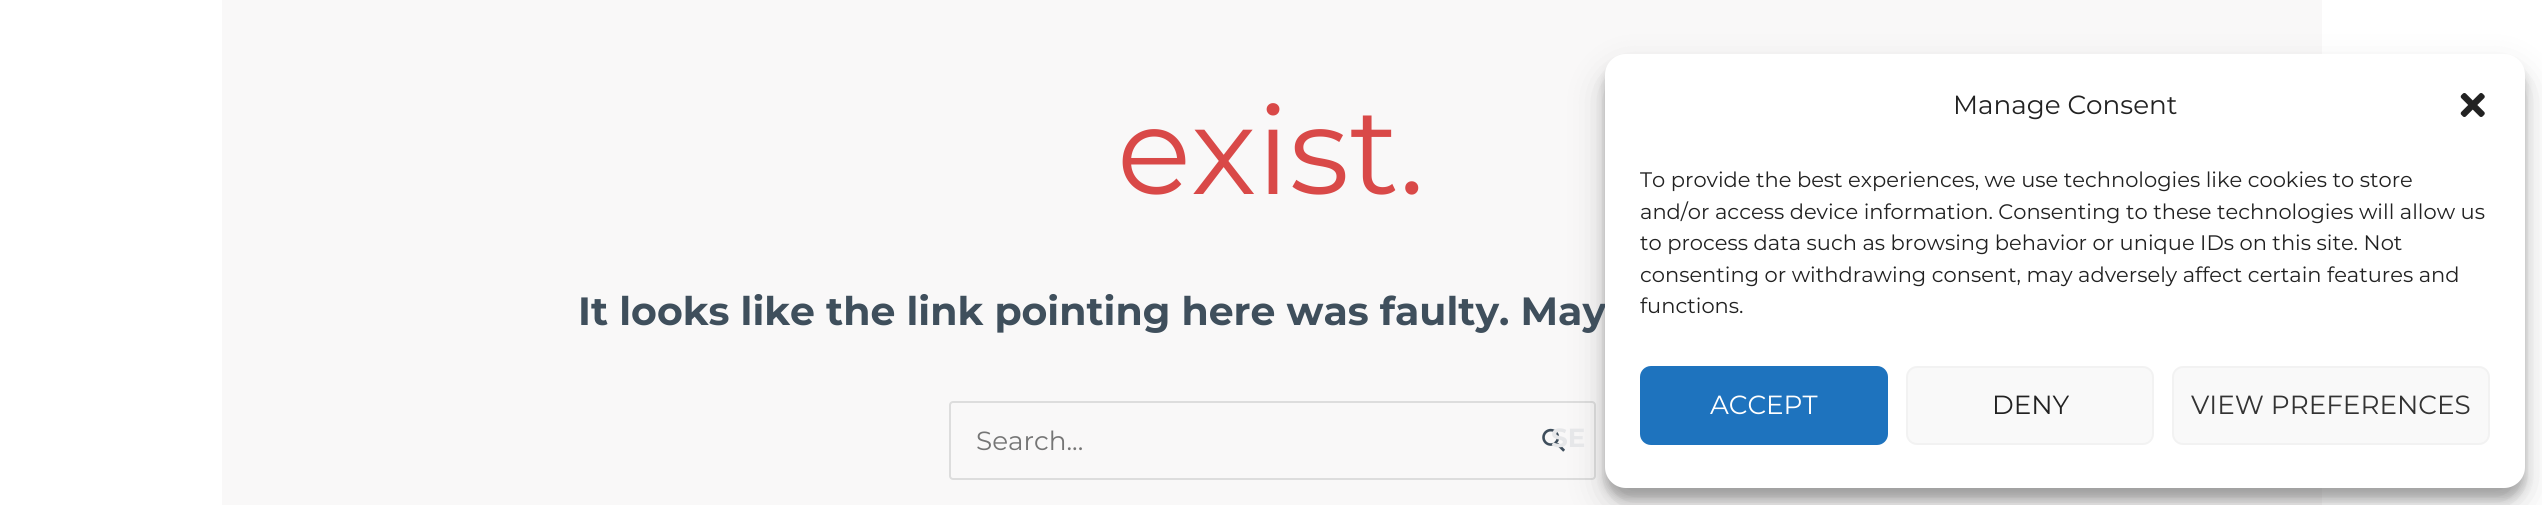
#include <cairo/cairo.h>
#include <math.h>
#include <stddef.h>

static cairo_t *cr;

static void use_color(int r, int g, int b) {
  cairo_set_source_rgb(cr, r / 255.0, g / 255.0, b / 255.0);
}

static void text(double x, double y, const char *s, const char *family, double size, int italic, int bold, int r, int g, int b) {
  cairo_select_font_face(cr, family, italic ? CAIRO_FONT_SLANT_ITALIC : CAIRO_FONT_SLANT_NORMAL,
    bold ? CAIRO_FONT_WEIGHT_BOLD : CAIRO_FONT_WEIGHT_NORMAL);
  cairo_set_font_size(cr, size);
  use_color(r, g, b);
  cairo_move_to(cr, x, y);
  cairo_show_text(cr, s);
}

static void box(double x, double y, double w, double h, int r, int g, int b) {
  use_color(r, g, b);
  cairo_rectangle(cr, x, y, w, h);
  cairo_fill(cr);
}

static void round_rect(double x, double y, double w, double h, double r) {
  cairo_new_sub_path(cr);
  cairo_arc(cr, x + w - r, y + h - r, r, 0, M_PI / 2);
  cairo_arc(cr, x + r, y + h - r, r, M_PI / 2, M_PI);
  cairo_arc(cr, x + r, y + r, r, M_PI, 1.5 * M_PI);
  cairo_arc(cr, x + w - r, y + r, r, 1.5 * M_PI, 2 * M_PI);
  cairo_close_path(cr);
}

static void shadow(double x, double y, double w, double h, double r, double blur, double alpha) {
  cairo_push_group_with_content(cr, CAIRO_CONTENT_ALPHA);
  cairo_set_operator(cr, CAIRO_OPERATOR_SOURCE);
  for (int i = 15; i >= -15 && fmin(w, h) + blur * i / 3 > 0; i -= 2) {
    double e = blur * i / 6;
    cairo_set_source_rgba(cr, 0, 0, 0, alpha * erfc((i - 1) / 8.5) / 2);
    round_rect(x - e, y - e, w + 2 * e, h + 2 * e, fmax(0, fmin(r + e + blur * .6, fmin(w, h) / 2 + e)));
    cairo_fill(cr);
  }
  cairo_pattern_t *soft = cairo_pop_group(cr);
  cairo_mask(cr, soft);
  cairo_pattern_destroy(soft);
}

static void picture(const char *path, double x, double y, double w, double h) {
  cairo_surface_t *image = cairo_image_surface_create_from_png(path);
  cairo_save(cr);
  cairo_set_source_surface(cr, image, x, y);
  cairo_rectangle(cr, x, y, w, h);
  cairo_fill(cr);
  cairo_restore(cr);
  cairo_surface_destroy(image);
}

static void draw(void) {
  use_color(255, 255, 255);
  cairo_paint(cr);
  box(222, 0, 2100, 505, 249, 248, 248);
  round_rect(950, 402, 645, 77, 3);
  use_color(221, 221, 221);
  cairo_stroke(cr);
  picture("img_01.png", 1542, 428, 23, 24);
  use_color(0, 0, 0);
  shadow(1605, 65, 920, 434, 21, 5, 0.23);
  shadow(1605, 72, 920, 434, 21, 17.5, 0.19);
  text(1117, 194, "exist.", "Montserrat", 122.5, 0, 0, 217, 73, 72);
  text(578, 325, "It looks like the link pointing here was faulty. May", "Montserrat", 39.4, 0, 1, 63, 79, 92);
  text(976, 450, "Search...", "Montserrat", 26.25, 0, 0, 117, 117, 117);
  text(1551, 447, "SE", "Montserrat", 26.25, 0, 1, 230, 231, 233);
  use_color(255, 255, 255);
  round_rect(1605, 54, 920, 434, 21);
  cairo_fill(cr);
  text(1953, 114, "Manage Consent", "Montserrat", 26.25, 0, 0, 34, 34, 34);
  picture("img_02.png", 2460, 93, 25, 24);
  text(1640, 187, "To provide the best experiences, we use technologies like cookies to store", "Montserrat", 21, 0, 0, 34, 34, 34);
  text(1640, 219, "and/or access device information. Consenting to these technologies will allow us", "Montserrat", 21, 0, 0, 34, 34, 34);
  text(1640, 250, "to process data such as browsing behavior or unique IDs on this site. Not", "Montserrat", 21, 0, 0, 34, 34, 34);
  text(1640, 282, "consenting or withdrawing consent, may adversely affect certain features and", "Montserrat", 21, 0, 0, 34, 34, 34);
  text(1640, 313, "functions.", "Montserrat", 21, 0, 0, 34, 34, 34);
  use_color(30, 115, 190);
  round_rect(1641, 367, 246, 77, 10);
  cairo_fill_preserve(cr);
  cairo_stroke(cr);
  text(1710, 414, "ACCEPT", "Montserrat", 26.25, 0, 0, 255, 255, 255);
  use_color(249, 249, 249);
  round_rect(1907, 367, 246, 77, 10);
  cairo_fill_preserve(cr);
  use_color(242, 242, 242);
  cairo_stroke(cr);
  text(1992, 414, "DENY", "Montserrat", 26.25, 0, 0, 34, 34, 34);
  use_color(249, 249, 249);
  round_rect(2173, 367, 316, 77, 10);
  cairo_fill_preserve(cr);
  use_color(242, 242, 242);
  cairo_stroke(cr);
  text(2191, 414, "VIEW PREFERENCES", "Montserrat", 26.25, 0, 0, 51, 51, 51);
}

int main(void) {
  cairo_surface_t *surface = cairo_image_surface_create(CAIRO_FORMAT_RGB24, 2542, 505);
  cr = cairo_create(surface);
  cairo_font_options_t *options = cairo_font_options_create();
  cairo_font_options_set_hint_metrics(options, CAIRO_HINT_METRICS_OFF);
  cairo_font_options_set_hint_style(options, CAIRO_HINT_STYLE_NONE);
  cairo_set_font_options(cr, options);
  cairo_set_miter_limit(cr, 4);
  draw();
  cairo_surface_write_to_png(surface, "out.png");
  cairo_font_options_destroy(options);
  cairo_destroy(cr);
  cairo_surface_destroy(surface);
  return 0;
}
